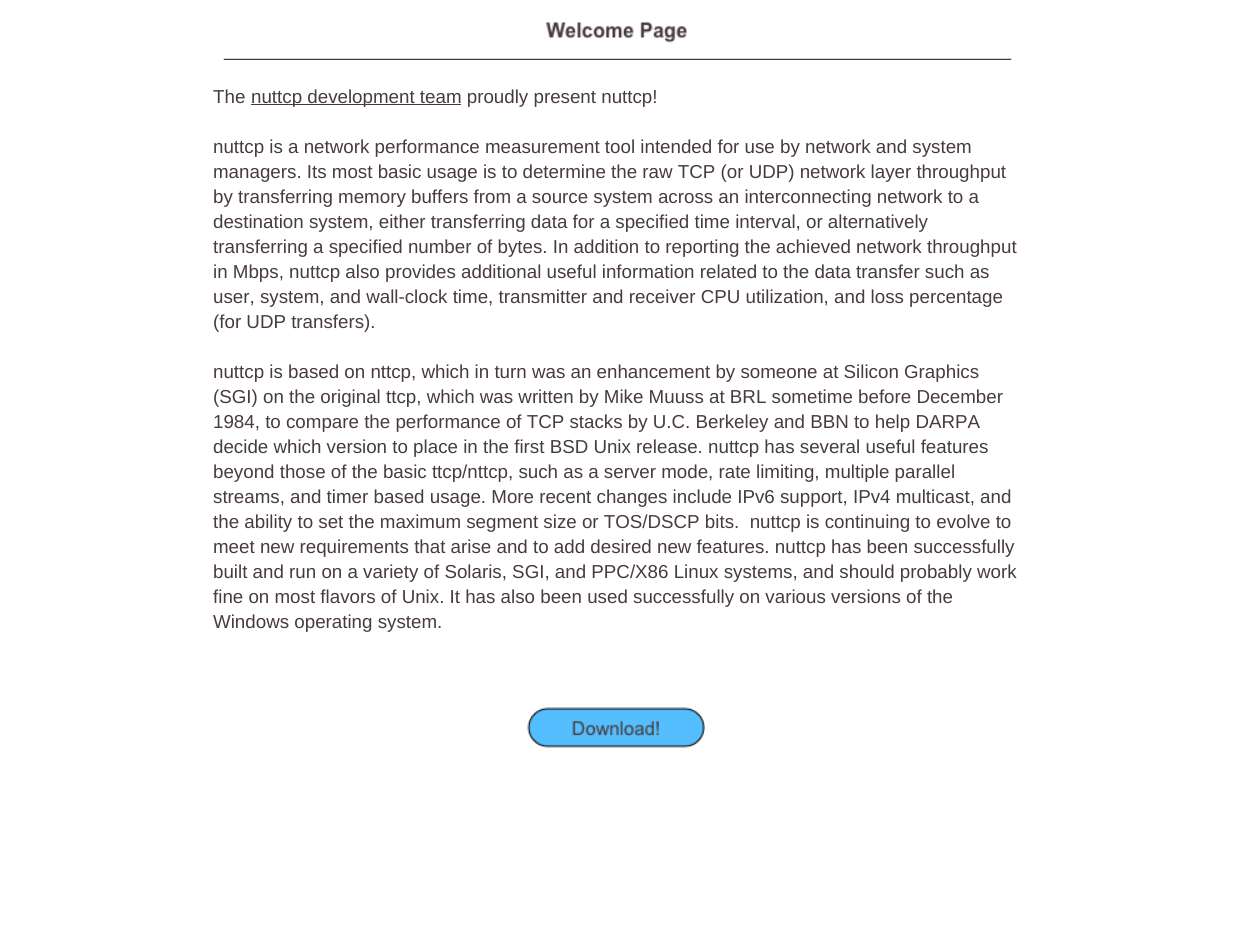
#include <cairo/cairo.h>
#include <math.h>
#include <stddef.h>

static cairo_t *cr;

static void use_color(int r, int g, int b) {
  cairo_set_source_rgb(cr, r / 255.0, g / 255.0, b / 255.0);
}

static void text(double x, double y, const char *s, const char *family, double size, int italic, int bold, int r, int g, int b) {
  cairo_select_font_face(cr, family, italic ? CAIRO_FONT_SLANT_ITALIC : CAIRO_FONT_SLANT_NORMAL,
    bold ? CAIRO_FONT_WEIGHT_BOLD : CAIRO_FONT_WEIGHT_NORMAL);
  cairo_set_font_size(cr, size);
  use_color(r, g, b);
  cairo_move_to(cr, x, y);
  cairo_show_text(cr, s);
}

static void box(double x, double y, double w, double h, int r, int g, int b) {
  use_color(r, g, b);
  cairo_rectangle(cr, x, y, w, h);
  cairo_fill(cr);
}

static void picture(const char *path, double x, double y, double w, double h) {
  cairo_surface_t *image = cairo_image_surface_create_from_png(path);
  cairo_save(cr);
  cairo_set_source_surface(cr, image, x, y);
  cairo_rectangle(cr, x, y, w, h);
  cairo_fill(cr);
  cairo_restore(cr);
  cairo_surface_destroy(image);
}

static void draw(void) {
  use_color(255, 255, 255);
  cairo_paint(cr);
  picture("img_01.png", 546, 22, 142, 21);
  picture("img_02.png", 223, 58, 789, 2);
  box(251, 104, 210, 1, 72, 59, 59);
  picture("img_03.png", 527, 707, 178, 41);
  text(213, 103, "The", "Liberation Sans", 18.75, 0, 0, 72, 59, 59);
  text(251, 103, "nuttcp development team proudly present nuttcp!", "Liberation Sans", 18.75, 0, 0, 72, 59, 59);
  text(213, 153, "nuttcp is a network performance measurement tool intended for use by network and system", "Liberation Sans", 18.75, 0, 0, 72, 59, 59);
  text(213, 178, "managers. Its most basic usage is to determine the raw TCP (or UDP) network layer throughput", "Liberation Sans", 18.75, 0, 0, 72, 59, 59);
  text(213, 203, "by transferring memory buffers from a source system across an interconnecting network to a", "Liberation Sans", 18.75, 0, 0, 72, 59, 59);
  text(213, 228, "destination system, either transferring data for a specified time interval, or alternatively", "Liberation Sans", 18.75, 0, 0, 72, 59, 59);
  text(213, 253, "transferring a specified number of bytes. In addition to reporting the achieved network throughput", "Liberation Sans", 18.75, 0, 0, 72, 59, 59);
  text(213, 278, "in Mbps, nuttcp also provides additional useful information related to the data transfer such as", "Liberation Sans", 18.75, 0, 0, 72, 59, 59);
  text(213, 303, "user, system, and wall-clock time, transmitter and receiver CPU utilization, and loss percentage", "Liberation Sans", 18.75, 0, 0, 72, 59, 59);
  text(213, 328, "(for UDP transfers).", "Liberation Sans", 18.75, 0, 0, 72, 59, 59);
  text(213, 378, "nuttcp is based on nttcp, which in turn was an enhancement by someone at Silicon Graphics", "Liberation Sans", 18.75, 0, 0, 72, 59, 59);
  text(213, 403, "(SGI) on the original ttcp, which was written by Mike Muuss at BRL sometime before December", "Liberation Sans", 18.75, 0, 0, 72, 59, 59);
  text(213, 428, "1984, to compare the performance of TCP stacks by U.C. Berkeley and BBN to help DARPA", "Liberation Sans", 18.75, 0, 0, 72, 59, 59);
  text(213, 453, "decide which version to place in the first BSD Unix release. nuttcp has several useful features", "Liberation Sans", 18.75, 0, 0, 72, 59, 59);
  text(213, 478, "beyond those of the basic ttcp/nttcp, such as a server mode, rate limiting, multiple parallel", "Liberation Sans", 18.75, 0, 0, 72, 59, 59);
  text(213, 503, "streams, and timer based usage. More recent changes include IPv6 support, IPv4 multicast, and", "Liberation Sans", 18.75, 0, 0, 72, 59, 59);
  text(213, 528, "the ability to set the maximum segment size or TOS/DSCP bits.  nuttcp is continuing to evolve to", "Liberation Sans", 18.75, 0, 0, 72, 59, 59);
  text(213, 553, "meet new requirements that arise and to add desired new features. nuttcp has been successfully", "Liberation Sans", 18.75, 0, 0, 72, 59, 59);
  text(213, 578, "built and run on a variety of Solaris, SGI, and PPC/X86 Linux systems, and should probably work", "Liberation Sans", 18.75, 0, 0, 72, 59, 59);
  text(213, 603, "fine on most flavors of Unix. It has also been used successfully on various versions of the", "Liberation Sans", 18.75, 0, 0, 72, 59, 59);
  text(213, 628, "Windows operating system.", "Liberation Sans", 18.75, 0, 0, 72, 59, 59);
}

int main(void) {
  cairo_surface_t *surface = cairo_image_surface_create(CAIRO_FORMAT_RGB24, 1233, 951);
  cr = cairo_create(surface);
  cairo_font_options_t *options = cairo_font_options_create();
  cairo_font_options_set_hint_metrics(options, CAIRO_HINT_METRICS_OFF);
  cairo_font_options_set_hint_style(options, CAIRO_HINT_STYLE_NONE);
  cairo_set_font_options(cr, options);
  cairo_set_miter_limit(cr, 4);
  draw();
  cairo_surface_write_to_png(surface, "out.png");
  cairo_font_options_destroy(options);
  cairo_destroy(cr);
  cairo_surface_destroy(surface);
  return 0;
}
